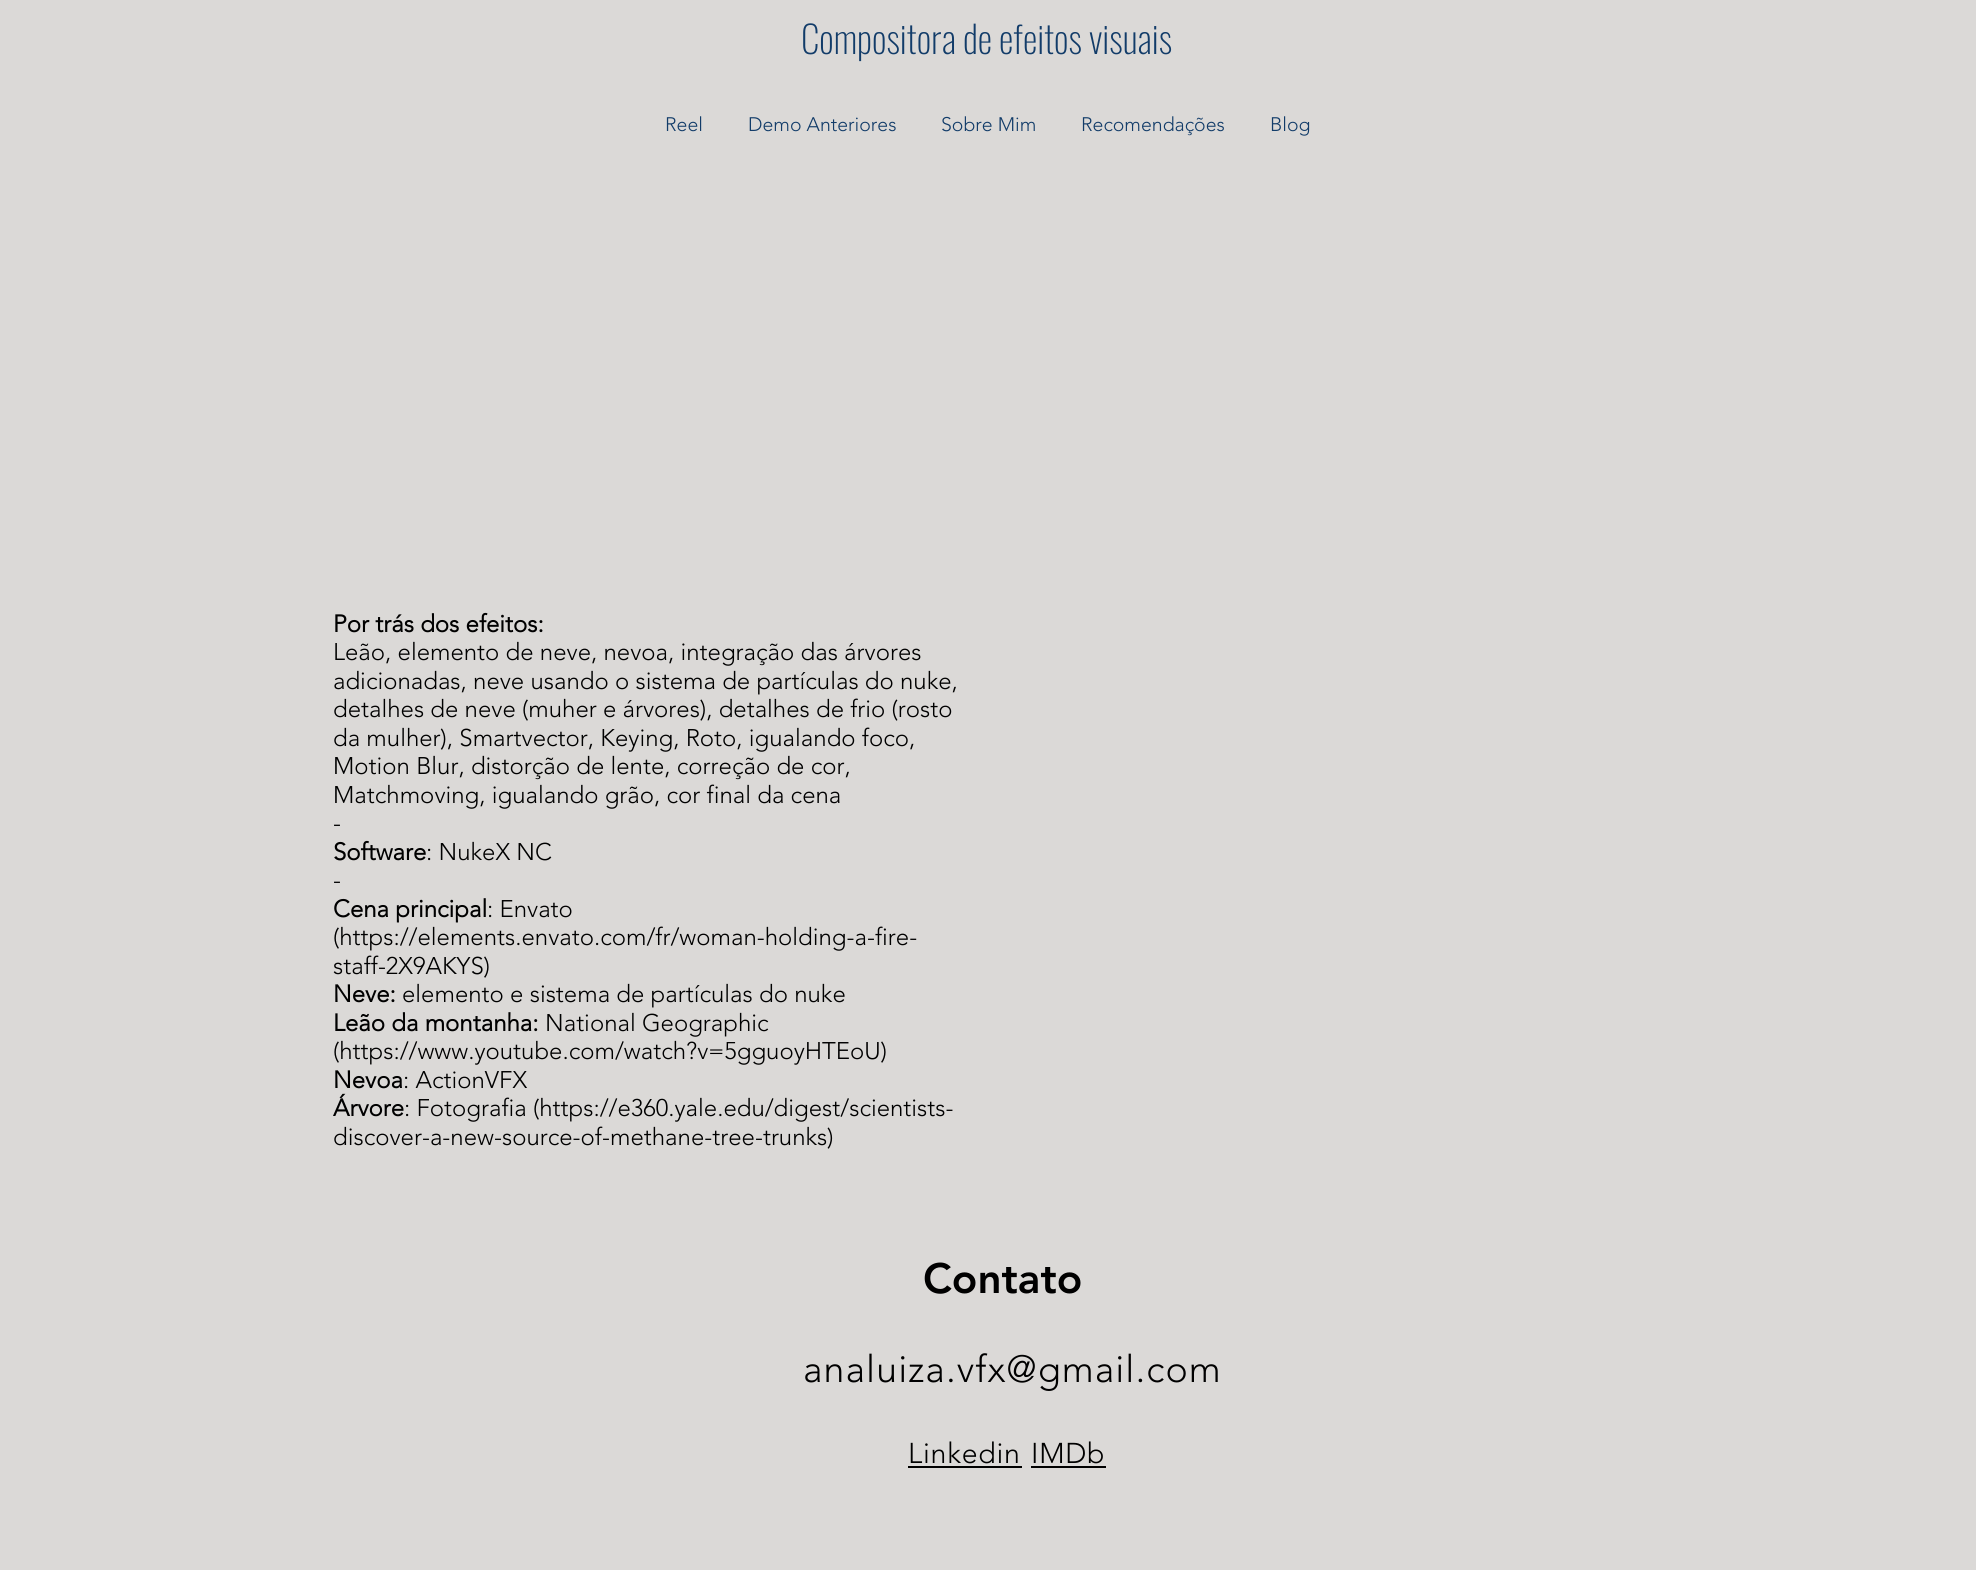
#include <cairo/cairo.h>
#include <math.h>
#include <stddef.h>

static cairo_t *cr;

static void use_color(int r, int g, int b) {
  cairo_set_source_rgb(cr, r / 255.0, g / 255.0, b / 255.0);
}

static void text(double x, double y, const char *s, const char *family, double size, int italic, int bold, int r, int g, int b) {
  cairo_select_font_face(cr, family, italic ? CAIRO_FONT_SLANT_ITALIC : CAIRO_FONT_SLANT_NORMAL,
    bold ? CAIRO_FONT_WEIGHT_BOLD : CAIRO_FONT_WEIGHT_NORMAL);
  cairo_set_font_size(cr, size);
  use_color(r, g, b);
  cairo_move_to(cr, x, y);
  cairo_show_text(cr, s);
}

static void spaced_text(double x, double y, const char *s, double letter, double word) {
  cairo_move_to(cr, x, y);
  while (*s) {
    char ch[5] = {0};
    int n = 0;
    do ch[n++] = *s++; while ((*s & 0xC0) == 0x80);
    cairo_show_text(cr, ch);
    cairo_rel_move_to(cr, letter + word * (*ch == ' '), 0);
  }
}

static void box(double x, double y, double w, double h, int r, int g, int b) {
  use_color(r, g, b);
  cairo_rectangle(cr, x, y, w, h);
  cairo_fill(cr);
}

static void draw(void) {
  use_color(219, 217, 215);
  cairo_paint(cr);
  box(908, 1466, 114, 2, 0, 0, 0);
  box(1031, 1466, 75, 2, 0, 0, 0);
  text(801, 54, "Compositora de efeitos visuais", "Oswald ExtraLight", 37.5, 0, 0, 18, 60, 105);
  text(665, 131, "Reel", "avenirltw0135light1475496 Light", 19.5, 0, 0, 18, 60, 105);
  text(748, 131, "Demo Anteriores", "avenirltw0135light1475496 Light", 19.5, 0, 0, 18, 60, 105);
  text(941, 131, "Sobre Mim", "avenirltw0135light1475496 Light", 19.5, 0, 0, 18, 60, 105);
  text(1081, 131, "Recomendações", "avenirltw0135light1475496 Light", 19.5, 0, 0, 18, 60, 105);
  text(1270, 131, "Blog", "avenirltw0135light1475496 Light", 19.5, 0, 0, 18, 60, 105);
  text(333, 632, "Por trás dos efeitos:", "avenirltw0135light1475496", 24, 0, 1, 0, 0, 0);
  text(333, 660, "Leão, elemento de neve, nevoa, integração das árvores", "avenirltw0135light1475496 Light", 24, 0, 0, 0, 0, 0);
  text(333, 689, "adicionadas, neve usando o sistema de partículas do nuke,", "avenirltw0135light1475496 Light", 24, 0, 0, 0, 0, 0);
  text(333, 717, "detalhes de neve (muher e árvores), detalhes de frio (rosto", "avenirltw0135light1475496 Light", 24, 0, 0, 0, 0, 0);
  text(333, 746, "da mulher), Smartvector, Keying, Roto, igualando foco,", "avenirltw0135light1475496 Light", 24, 0, 0, 0, 0, 0);
  text(333, 774, "Motion Blur, distorção de lente, correção de cor,", "avenirltw0135light1475496 Light", 24, 0, 0, 0, 0, 0);
  text(333, 803, "Matchmoving, igualando grão, cor final da cena", "avenirltw0135light1475496 Light", 24, 0, 0, 0, 0, 0);
  text(333, 831, "-", "avenirltw0135light1475496 Light", 24, 0, 0, 0, 0, 0);
  text(333, 860, "Software", "avenirltw0135light1475496", 24, 0, 1, 0, 0, 0);
  text(426, 860, ": NukeX NC", "avenirltw0135light1475496 Light", 24, 0, 0, 0, 0, 0);
  text(333, 888, "-", "avenirltw0135light1475496 Light", 24, 0, 0, 0, 0, 0);
  text(333, 917, "Cena principal", "avenirltw0135light1475496", 24, 0, 1, 0, 0, 0);
  text(487, 917, ": Envato", "avenirltw0135light1475496 Light", 24, 0, 0, 0, 0, 0);
  text(333, 945, "(https://elements.envato.com/fr/woman-holding-a-fire-", "avenirltw0135light1475496 Light", 24, 0, 0, 0, 0, 0);
  text(333, 974, "staff-2X9AKYS)", "avenirltw0135light1475496 Light", 24, 0, 0, 0, 0, 0);
  text(333, 1002, "Neve:", "avenirltw0135light1475496", 24, 0, 1, 0, 0, 0);
  text(402, 1002, "elemento e sistema de partículas do nuke", "avenirltw0135light1475496 Light", 24, 0, 0, 0, 0, 0);
  text(333, 1031, "Leão da montanha:", "avenirltw0135light1475496", 24, 0, 1, 0, 0, 0);
  text(545, 1031, "National Geographic", "avenirltw0135light1475496 Light", 24, 0, 0, 0, 0, 0);
  text(333, 1059, "(https://www.youtube.com/watch?v=5gguoyHTEoU)", "avenirltw0135light1475496 Light", 24, 0, 0, 0, 0, 0);
  text(333, 1088, "Nevoa", "avenirltw0135light1475496", 24, 0, 1, 0, 0, 0);
  text(403, 1088, ": ActionVFX", "avenirltw0135light1475496 Light", 24, 0, 0, 0, 0, 0);
  text(333, 1116, "Árvore", "avenirltw0135light1475496", 24, 0, 1, 0, 0, 0);
  text(404, 1116, ": Fotografia (https://e360.yale.edu/digest/scientists-", "avenirltw0135light1475496 Light", 24, 0, 0, 0, 0, 0);
  text(333, 1145, "discover-a-new-source-of-methane-tree-trunks)", "avenirltw0135light1475496 Light", 24, 0, 0, 0, 0, 0);
  text(923, 1293, "Contato", "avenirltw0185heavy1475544 Black", 42, 0, 0, 0, 0, 0);
  cairo_select_font_face(cr, "avenirltw0135light1475496 Light", CAIRO_FONT_SLANT_NORMAL, CAIRO_FONT_WEIGHT_NORMAL);
  cairo_set_font_size(cr, 37.5);
  spaced_text(803, 1382, "analuiza.vfx@gmail.com", 1.1, 0);
  cairo_set_font_size(cr, 28.5);
  spaced_text(908, 1463, "Linkedin", 0.75, 0);
  spaced_text(1031, 1463, "IMDb", 0.75, 0);
}

int main(void) {
  cairo_surface_t *surface = cairo_image_surface_create(CAIRO_FORMAT_RGB24, 1976, 1570);
  cr = cairo_create(surface);
  cairo_font_options_t *options = cairo_font_options_create();
  cairo_font_options_set_hint_metrics(options, CAIRO_HINT_METRICS_OFF);
  cairo_font_options_set_hint_style(options, CAIRO_HINT_STYLE_NONE);
  cairo_set_font_options(cr, options);
  cairo_set_miter_limit(cr, 4);
  draw();
  cairo_surface_write_to_png(surface, "out.png");
  cairo_font_options_destroy(options);
  cairo_destroy(cr);
  cairo_surface_destroy(surface);
  return 0;
}
